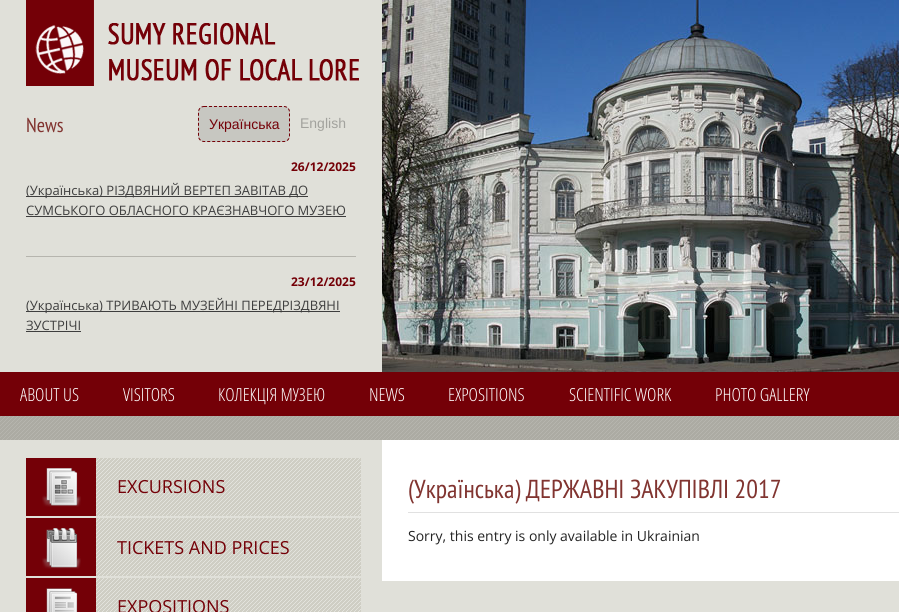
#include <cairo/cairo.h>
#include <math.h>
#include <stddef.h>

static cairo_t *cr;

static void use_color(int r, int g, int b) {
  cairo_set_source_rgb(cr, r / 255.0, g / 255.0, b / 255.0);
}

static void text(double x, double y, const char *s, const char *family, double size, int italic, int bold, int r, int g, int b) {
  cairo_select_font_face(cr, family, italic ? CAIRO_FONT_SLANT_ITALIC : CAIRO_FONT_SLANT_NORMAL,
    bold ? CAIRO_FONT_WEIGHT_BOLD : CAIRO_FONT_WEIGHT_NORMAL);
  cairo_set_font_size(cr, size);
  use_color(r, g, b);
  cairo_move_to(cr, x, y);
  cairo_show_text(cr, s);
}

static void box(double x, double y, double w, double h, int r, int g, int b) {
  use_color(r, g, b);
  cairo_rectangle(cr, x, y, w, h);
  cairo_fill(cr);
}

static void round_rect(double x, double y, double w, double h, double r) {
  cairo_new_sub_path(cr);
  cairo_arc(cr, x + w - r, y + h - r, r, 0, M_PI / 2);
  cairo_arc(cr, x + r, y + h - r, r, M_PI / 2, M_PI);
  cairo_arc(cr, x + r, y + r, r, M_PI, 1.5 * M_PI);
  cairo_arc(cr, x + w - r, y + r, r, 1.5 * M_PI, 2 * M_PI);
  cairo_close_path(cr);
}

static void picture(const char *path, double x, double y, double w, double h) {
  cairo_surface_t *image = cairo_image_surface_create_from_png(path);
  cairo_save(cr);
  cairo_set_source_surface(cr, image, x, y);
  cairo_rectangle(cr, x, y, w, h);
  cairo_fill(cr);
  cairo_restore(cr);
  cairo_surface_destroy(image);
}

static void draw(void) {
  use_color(255, 255, 255);
  cairo_paint(cr);
  picture("img_01.png", 0, 416, 899, 24);
  box(0, 0, 382, 372, 224, 224, 217);
  picture("img_02.png", 26, 0, 333, 86);
  use_color(199, 199, 193);
  round_rect(198, 106, 92, 36, 6);
  cairo_fill(cr);
  cairo_new_path(cr);
  cairo_move_to(cr, 204, 106.5);
  cairo_line_to(cr, 284, 106.5);
  cairo_curve_to(cr, 287, 106.5, 289.5, 109, 289.5, 112);
  cairo_line_to(cr, 289.5, 136);
  cairo_curve_to(cr, 289.5, 139, 287, 141.5, 284, 141.5);
  cairo_line_to(cr, 204, 141.5);
  cairo_curve_to(cr, 201, 141.5, 198.5, 139, 198.5, 136);
  cairo_line_to(cr, 198.5, 112);
  cairo_curve_to(cr, 198.5, 109, 201, 106.5, 204, 106.5);
  cairo_close_path(cr);
  use_color(116, 0, 7);
  cairo_set_line_width(cr, 1);
  cairo_set_dash(cr, (double[]){3, 2}, 2, 0);
  cairo_stroke(cr);
  box(26, 256, 330, 1, 182, 181, 174);
  box(26, 196, 282, 1, 62, 62, 62);
  box(26, 216, 320, 1, 62, 62, 62);
  box(26, 311, 314, 1, 62, 62, 62);
  box(26, 331, 55, 1, 62, 62, 62);
  picture("img_03.png", 382, 0, 517, 372);
  box(0, 372, 899, 44, 116, 0, 7);
  box(0, 440, 899, 172, 224, 224, 217);
  picture("img_04.png", 26, 458, 335, 58);
  picture("img_05.png", 42, 468, 39, 39);
  picture("img_04.png", 26, 518, 335, 58);
  picture("img_06.png", 42, 528, 39, 41);
  picture("img_07.png", 26, 578, 335, 34);
  picture("img_08.png", 46, 588, 32, 24);
  box(382, 440, 517, 141, 255, 255, 255);
  box(408, 512, 491, 1, 225, 225, 225);
  text(26, 132, "News", "PT Sans Narrow", 20, 0, 0, 129, 52, 48);
  text(209, 129, "Українська", "Liberation Sans", 14, 0, 0, 116, 0, 7);
  text(300, 128, "English", "Liberation Sans", 14, 0, 0, 162, 162, 157);
  text(291, 171, "26/12/2025", "Open Sans", 12, 0, 1, 116, 0, 7);
  text(26, 195, "(Українська) РІЗДВЯНИЙ ВЕРТЕП ЗАВІТАВ ДО", "Open Sans", 13, 0, 0, 62, 62, 62);
  text(26, 215, "СУМСЬКОГО ОБЛАСНОГО КРАЄЗНАВЧОГО МУЗЕЮ", "Open Sans", 13, 0, 0, 62, 62, 62);
  text(291, 286, "23/12/2025", "Open Sans", 12, 0, 1, 116, 0, 7);
  text(26, 310, "(Українська) ТРИВАЮТЬ МУЗЕЙНІ ПЕРЕДРІЗДВЯНІ", "Open Sans", 13, 0, 0, 62, 62, 62);
  text(26, 330, "ЗУСТРІЧІ", "Open Sans", 13, 0, 0, 62, 62, 62);
  text(20, 401, "ABOUT US", "Open Sans Condensed Light", 18, 0, 0, 255, 255, 255);
  text(123, 401, "VISITORS", "Open Sans Condensed Light", 18, 0, 0, 255, 255, 255);
  text(218, 401, "КОЛЕКЦІЯ МУЗЕЮ", "Open Sans Condensed Light", 18, 0, 0, 255, 255, 255);
  text(369, 401, "NEWS", "Open Sans Condensed Light", 18, 0, 0, 255, 255, 255);
  text(448, 401, "EXPOSITIONS", "Open Sans Condensed Light", 18, 0, 0, 255, 255, 255);
  text(569, 401, "SCIENTIFIC WORK", "Open Sans Condensed Light", 18, 0, 0, 255, 255, 255);
  text(715, 401, "PHOTO GALLERY", "Open Sans Condensed Light", 18, 0, 0, 255, 255, 255);
  text(117, 493, "EXCURSIONS", "Open Sans", 18, 0, 0, 116, 0, 7);
  text(117, 554, "TICKETS AND PRICES", "Open Sans", 18, 0, 0, 116, 0, 7);
  text(117, 613, "EXPOSITIONS", "Open Sans", 18, 0, 0, 116, 0, 7);
  text(408, 498, "(Українська) ДЕРЖАВНІ ЗАКУПІВЛІ 2017", "PT Sans Narrow", 26, 0, 0, 129, 52, 48);
  text(408, 541, "Sorry, this entry is only available in Ukrainian", "Open Sans", 14, 0, 0, 36, 36, 36);
}

int main(void) {
  cairo_surface_t *surface = cairo_image_surface_create(CAIRO_FORMAT_RGB24, 899, 612);
  cr = cairo_create(surface);
  cairo_font_options_t *options = cairo_font_options_create();
  cairo_font_options_set_hint_metrics(options, CAIRO_HINT_METRICS_OFF);
  cairo_font_options_set_hint_style(options, CAIRO_HINT_STYLE_NONE);
  cairo_set_font_options(cr, options);
  cairo_set_miter_limit(cr, 4);
  draw();
  cairo_surface_write_to_png(surface, "out.png");
  cairo_font_options_destroy(options);
  cairo_destroy(cr);
  cairo_surface_destroy(surface);
  return 0;
}
